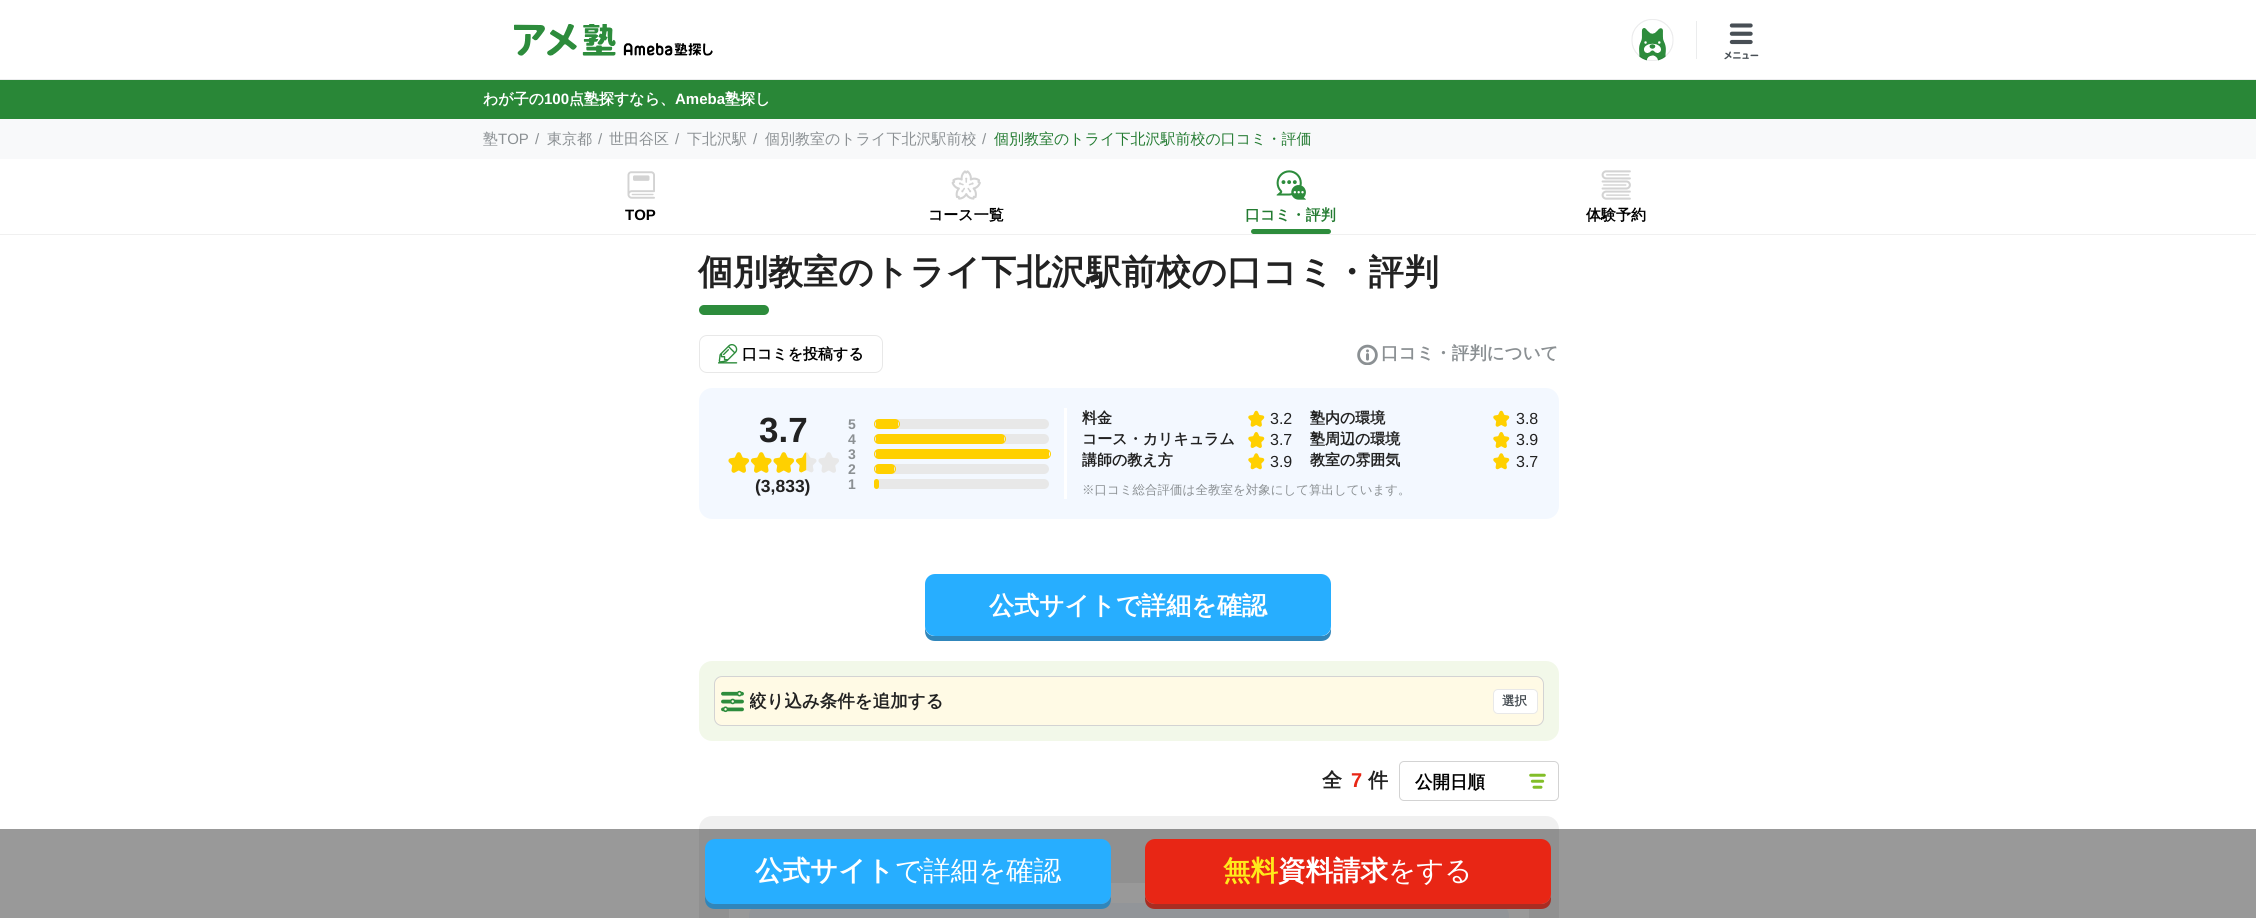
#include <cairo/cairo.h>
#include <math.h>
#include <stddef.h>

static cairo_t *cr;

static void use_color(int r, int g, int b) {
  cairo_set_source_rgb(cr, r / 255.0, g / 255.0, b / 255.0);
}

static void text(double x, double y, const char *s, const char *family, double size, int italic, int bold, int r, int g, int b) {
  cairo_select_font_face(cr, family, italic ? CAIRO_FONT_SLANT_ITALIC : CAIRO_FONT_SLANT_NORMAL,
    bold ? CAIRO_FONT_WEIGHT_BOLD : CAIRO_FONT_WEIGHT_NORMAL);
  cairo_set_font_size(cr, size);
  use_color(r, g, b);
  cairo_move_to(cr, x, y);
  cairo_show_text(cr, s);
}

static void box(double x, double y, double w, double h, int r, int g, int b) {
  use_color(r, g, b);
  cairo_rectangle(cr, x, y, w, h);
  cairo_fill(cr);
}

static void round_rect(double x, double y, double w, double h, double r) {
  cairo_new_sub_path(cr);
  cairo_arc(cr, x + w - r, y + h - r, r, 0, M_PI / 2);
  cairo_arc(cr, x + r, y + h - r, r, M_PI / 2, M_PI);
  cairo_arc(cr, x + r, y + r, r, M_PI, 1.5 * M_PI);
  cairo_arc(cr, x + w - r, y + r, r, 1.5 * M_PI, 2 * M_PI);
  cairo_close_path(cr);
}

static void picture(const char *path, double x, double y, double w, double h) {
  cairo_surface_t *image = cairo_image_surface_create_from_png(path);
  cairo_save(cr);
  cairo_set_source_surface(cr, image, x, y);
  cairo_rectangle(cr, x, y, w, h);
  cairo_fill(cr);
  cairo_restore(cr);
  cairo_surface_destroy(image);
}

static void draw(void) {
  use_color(255, 255, 255);
  cairo_paint(cr);
  box(0, 829, 2256, 89, 153, 153, 153);
  picture("img_01.png", 514, 24, 199, 32);
  picture("img_02.png", 1631, 19, 43, 42);
  box(1696, 21, 1, 38, 235, 236, 237);
  picture("img_03.png", 1724, 23, 35, 37);
  box(0, 79, 2256, 1, 235, 236, 237);
  box(0, 80, 2256, 39, 41, 135, 55);
  box(0, 119, 2256, 40, 248, 249, 250);
  box(0, 234, 2256, 1, 240, 240, 240);
  picture("img_04.png", 627, 171, 28, 28);
  picture("img_05.png", 951, 170, 30, 30);
  picture("img_06.png", 1276, 170, 30, 30);
  use_color(45, 140, 60);
  round_rect(1251, 229, 80, 5, 2.5);
  cairo_fill(cr);
  picture("img_07.png", 1601, 170, 30, 30);
  round_rect(699, 305, 70, 10, 5);
  cairo_fill(cr);
  round_rect(699.5, 335.5, 183, 37, 7.5);
  use_color(232, 232, 232);
  cairo_set_line_width(cr, 1);
  cairo_stroke(cr);
  picture("img_08.png", 718, 344, 20, 20);
  picture("img_09.png", 1357, 344, 21, 21);
  use_color(243, 248, 255);
  round_rect(699, 388, 860, 131, 13);
  cairo_fill(cr);
  box(1064, 408, 3, 91, 255, 255, 255);
  picture("img_10.png", 728, 452, 22, 21);
  picture("img_11.png", 750, 452, 22, 21);
  picture("img_10.png", 773, 452, 22, 21);
  picture("img_12.png", 796, 452, 21, 21);
  picture("img_13.png", 818, 452, 21, 21);
  use_color(232, 232, 232);
  round_rect(874, 419, 175, 10, 5);
  cairo_fill(cr);
  round_rect(874.5, 419.5, 25, 9, 4.5);
  use_color(255, 208, 0);
  cairo_stroke(cr);
  box(876, 420, 22, 8, 255, 208, 0);
  use_color(232, 232, 232);
  round_rect(874, 434, 175, 10, 5);
  cairo_fill(cr);
  round_rect(874.5, 434.5, 131, 9, 4.5);
  use_color(255, 208, 0);
  cairo_stroke(cr);
  box(876, 435, 128, 8, 255, 208, 0);
  use_color(232, 232, 232);
  round_rect(874, 449, 175, 10, 5);
  cairo_fill(cr);
  round_rect(874.5, 449.5, 176, 9, 4.5);
  use_color(255, 208, 0);
  cairo_stroke(cr);
  box(876, 450, 173, 8, 255, 208, 0);
  use_color(232, 232, 232);
  round_rect(874, 464, 175, 10, 5);
  cairo_fill(cr);
  round_rect(874.5, 464.5, 21, 9, 4.5);
  use_color(255, 208, 0);
  cairo_stroke(cr);
  box(876, 465, 18, 8, 255, 208, 0);
  use_color(232, 232, 232);
  round_rect(874, 479, 175, 10, 5);
  cairo_fill(cr);
  round_rect(874.5, 479.5, 4, 9, 2);
  use_color(255, 208, 0);
  cairo_stroke(cr);
  box(875, 480, 3, 8, 255, 208, 0);
  picture("img_14.png", 1248, 410, 17, 17);
  picture("img_14.png", 1493, 410, 17, 17);
  picture("img_15.png", 1248, 432, 17, 16);
  picture("img_15.png", 1493, 432, 17, 16);
  picture("img_16.png", 1248, 453, 17, 17);
  picture("img_16.png", 1493, 453, 17, 17);
  use_color(48, 134, 187);
  cairo_new_path(cr);
  cairo_move_to(cr, 925, 626);
  cairo_line_to(cr, 925, 631);
  cairo_curve_to(cr, 925, 637, 929, 641, 935, 641);
  cairo_line_to(cr, 1321, 641);
  cairo_curve_to(cr, 1327, 641, 1331, 637, 1331, 631);
  cairo_line_to(cr, 1331, 628);
  cairo_curve_to(cr, 1330, 633, 1326, 636, 1321, 636);
  cairo_line_to(cr, 935, 636);
  cairo_curve_to(cr, 929, 636, 925, 632, 925, 626);
  cairo_close_path(cr);
  cairo_fill(cr);
  use_color(39, 174, 255);
  round_rect(927, 576, 402, 58, 8);
  cairo_fill_preserve(cr);
  cairo_set_line_width(cr, 4);
  cairo_stroke(cr);
  use_color(242, 248, 233);
  round_rect(699, 661, 860, 80, 13);
  cairo_fill(cr);
  use_color(255, 250, 229);
  round_rect(714.5, 676.5, 829, 49, 7.5);
  cairo_fill_preserve(cr);
  use_color(211, 211, 211);
  cairo_set_line_width(cr, 1);
  cairo_stroke(cr);
  picture("img_17.png", 721, 690, 23, 23);
  use_color(255, 255, 255);
  round_rect(1493.5, 689.5, 44, 24, 4.5);
  cairo_fill_preserve(cr);
  use_color(232, 232, 232);
  cairo_stroke(cr);
  picture("img_18.png", 1529, 773, 17, 16);
  round_rect(1399.5, 761.5, 159, 39, 4.5);
  use_color(211, 211, 211);
  cairo_stroke(cr);
  use_color(240, 240, 240);
  round_rect(699, 816, 860, 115, 13);
  cairo_fill(cr);
  box(699, 829, 860, 89, 144, 144, 144);
  box(729, 883, 800, 35, 153, 153, 153);
  use_color(146, 149, 153);
  round_rect(749, 903, 760, 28, 13);
  cairo_fill(cr);
  use_color(48, 134, 187);
  cairo_new_path(cr);
  cairo_move_to(cr, 705, 894);
  cairo_line_to(cr, 705, 899);
  cairo_curve_to(cr, 705, 905, 709, 909, 715, 909);
  cairo_line_to(cr, 1101, 909);
  cairo_curve_to(cr, 1107, 909, 1111, 905, 1111, 899);
  cairo_line_to(cr, 1111, 896);
  cairo_curve_to(cr, 1110, 900, 1106, 904, 1101, 904);
  cairo_line_to(cr, 715, 904);
  cairo_curve_to(cr, 709, 904, 705, 899, 705, 894);
  cairo_close_path(cr);
  cairo_fill(cr);
  use_color(39, 174, 255);
  round_rect(707, 841, 402, 61, 8);
  cairo_fill_preserve(cr);
  cairo_set_line_width(cr, 4);
  cairo_stroke(cr);
  use_color(169, 45, 34);
  cairo_new_path(cr);
  cairo_move_to(cr, 1145, 894);
  cairo_line_to(cr, 1145, 899);
  cairo_curve_to(cr, 1145, 905, 1149, 909, 1155, 909);
  cairo_line_to(cr, 1541, 909);
  cairo_curve_to(cr, 1547, 909, 1551, 905, 1551, 899);
  cairo_line_to(cr, 1551, 896);
  cairo_curve_to(cr, 1550, 900, 1546, 904, 1541, 904);
  cairo_line_to(cr, 1155, 904);
  cairo_curve_to(cr, 1149, 904, 1145, 899, 1145, 894);
  cairo_close_path(cr);
  cairo_fill(cr);
  use_color(232, 38, 21);
  round_rect(1147, 841, 402, 61, 8);
  cairo_fill_preserve(cr);
  cairo_stroke(cr);
  text(483, 104, "わが子の", "WenQuanYi Zen Hei", 15, 0, 1, 255, 255, 255);
  text(544, 104, "100", "Liberation Sans", 15, 0, 1, 255, 255, 255);
  text(569, 104, "点塾探すなら、", "WenQuanYi Zen Hei", 15, 0, 1, 255, 255, 255);
  text(675, 104, "Ameba", "Liberation Sans", 15, 0, 1, 255, 255, 255);
  text(725, 104, "塾探し", "WenQuanYi Zen Hei", 15, 0, 1, 255, 255, 255);
  text(483, 144, "塾", "WenQuanYi Zen Hei Medium", 15, 0, 0, 139, 144, 147);
  text(498, 144, "TOP", "Liberation Sans", 15, 0, 0, 139, 144, 147);
  text(535, 144, "/", "Liberation Sans", 15, 0, 0, 139, 144, 147);
  text(547, 144, "東京都", "WenQuanYi Zen Hei Medium", 15, 0, 0, 139, 144, 147);
  text(598, 144, "/", "Liberation Sans", 15, 0, 0, 139, 144, 147);
  text(609, 144, "世田谷区", "WenQuanYi Zen Hei Medium", 15, 0, 0, 139, 144, 147);
  text(675, 144, "/", "Liberation Sans", 15, 0, 0, 139, 144, 147);
  text(687, 144, "下北沢駅", "WenQuanYi Zen Hei Medium", 15, 0, 0, 139, 144, 147);
  text(753, 144, "/", "Liberation Sans", 15, 0, 0, 139, 144, 147);
  text(765, 144, "個別教室のトライ下北沢駅前校", "WenQuanYi Zen Hei Medium", 15, 0, 0, 139, 144, 147);
  text(982, 144, "/", "Liberation Sans", 15, 0, 0, 139, 144, 147);
  text(994, 144, "個別教室のトライ下北沢駅前校の口コミ・評価", "WenQuanYi Zen Hei Medium", 15, 0, 0, 35, 123, 49);
  text(625, 220, "TOP", "Liberation Sans", 15, 0, 1, 0, 0, 0);
  text(928, 220, "コース一覧", "WenQuanYi Zen Hei", 15, 0, 1, 0, 0, 0);
  text(1245, 220, "口コミ・評判", "WenQuanYi Zen Hei", 15, 0, 1, 35, 123, 49);
  text(1586, 220, "体験予約", "WenQuanYi Zen Hei", 15, 0, 1, 0, 0, 0);
  text(698, 284, "個別教室のトライ下北沢駅前校の口コミ・評判", "WenQuanYi Zen Hei", 35, 0, 1, 34, 34, 34);
  text(742, 359, "口コミを投稿する", "WenQuanYi Zen Hei", 15, 0, 1, 0, 0, 0);
  text(1381, 359, "口コミ・評判について", "WenQuanYi Zen Hei", 17.5, 0, 1, 139, 144, 147);
  text(759, 442, "3.7", "Liberation Sans", 35, 0, 1, 34, 34, 34);
  text(755, 492, "(3,833)", "Liberation Sans", 17.5, 0, 1, 34, 34, 34);
  text(848, 429, "5", "Liberation Sans", 14, 0, 1, 139, 144, 147);
  text(848, 444, "4", "Liberation Sans", 14, 0, 1, 139, 144, 147);
  text(848, 459, "3", "Liberation Sans", 14, 0, 1, 139, 144, 147);
  text(848, 474, "2", "Liberation Sans", 14, 0, 1, 139, 144, 147);
  text(848, 489, "1", "Liberation Sans", 14, 0, 1, 139, 144, 147);
  text(1082, 423, "料金", "WenQuanYi Zen Hei", 15, 0, 1, 34, 34, 34);
  text(1270, 424, "3.2", "Liberation Sans", 16, 0, 0, 34, 34, 34);
  text(1310, 423, "塾内の環境", "WenQuanYi Zen Hei", 15, 0, 1, 34, 34, 34);
  text(1516, 424, "3.8", "Liberation Sans", 16, 0, 0, 34, 34, 34);
  text(1082, 444, "コース・カリキュラム", "WenQuanYi Zen Hei", 15, 0, 1, 34, 34, 34);
  text(1270, 445, "3.7", "Liberation Sans", 16, 0, 0, 34, 34, 34);
  text(1310, 444, "塾周辺の環境", "WenQuanYi Zen Hei", 15, 0, 1, 34, 34, 34);
  text(1516, 445, "3.9", "Liberation Sans", 16, 0, 0, 34, 34, 34);
  text(1082, 465, "講師の教え方", "WenQuanYi Zen Hei", 15, 0, 1, 34, 34, 34);
  text(1270, 467, "3.9", "Liberation Sans", 16, 0, 0, 34, 34, 34);
  text(1310, 465, "教室の雰囲気", "WenQuanYi Zen Hei", 15, 0, 1, 34, 34, 34);
  text(1516, 467, "3.7", "Liberation Sans", 16, 0, 0, 34, 34, 34);
  text(1082, 494, "※口コミ総合評価は全教室を対象にして算出しています。", "WenQuanYi Zen Hei Medium", 12.5, 0, 0, 139, 144, 147);
  text(989, 614, "公式サイトで詳細を確認", "WenQuanYi Zen Hei", 25, 0, 1, 255, 255, 255);
  cairo_save(cr);
  cairo_rectangle(cr, 750, 690, 738, 23);
  cairo_clip(cr);
  text(749, 707, "絞り込み条件を追加する", "WenQuanYi Zen Hei", 17.5, 0, 1, 34, 34, 34);
  cairo_restore(cr);
  text(1502, 705, "選択", "WenQuanYi Zen Hei", 12.5, 0, 1, 70, 77, 83);
  text(1322, 787, "全", "WenQuanYi Zen Hei", 20, 0, 1, 34, 34, 34);
  text(1351, 787, "7", "Liberation Sans", 20, 0, 1, 232, 38, 21);
  text(1368, 787, "件", "WenQuanYi Zen Hei", 20, 0, 1, 34, 34, 34);
  text(1415, 788, "公開日順", "WenQuanYi Zen Hei", 17.5, 0, 1, 0, 0, 0);
  text(755, 880, "公式サイト", "WenQuanYi Zen Hei", 27.5, 0, 1, 255, 255, 255);
  text(895, 880, "で詳細を確認", "WenQuanYi Zen Hei Medium", 27.5, 0, 0, 255, 255, 255);
  text(1223, 880, "無料", "WenQuanYi Zen Hei", 27.5, 0, 1, 255, 234, 27);
  text(1278, 880, "資料請求", "WenQuanYi Zen Hei", 27.5, 0, 1, 255, 255, 255);
  text(1388, 880, "をする", "WenQuanYi Zen Hei Medium", 27.5, 0, 0, 255, 255, 255);
}

int main(void) {
  cairo_surface_t *surface = cairo_image_surface_create(CAIRO_FORMAT_RGB24, 2256, 918);
  cr = cairo_create(surface);
  cairo_font_options_t *options = cairo_font_options_create();
  cairo_font_options_set_hint_metrics(options, CAIRO_HINT_METRICS_OFF);
  cairo_font_options_set_hint_style(options, CAIRO_HINT_STYLE_NONE);
  cairo_set_font_options(cr, options);
  cairo_set_miter_limit(cr, 4);
  draw();
  cairo_surface_write_to_png(surface, "out.png");
  cairo_font_options_destroy(options);
  cairo_destroy(cr);
  cairo_surface_destroy(surface);
  return 0;
}
